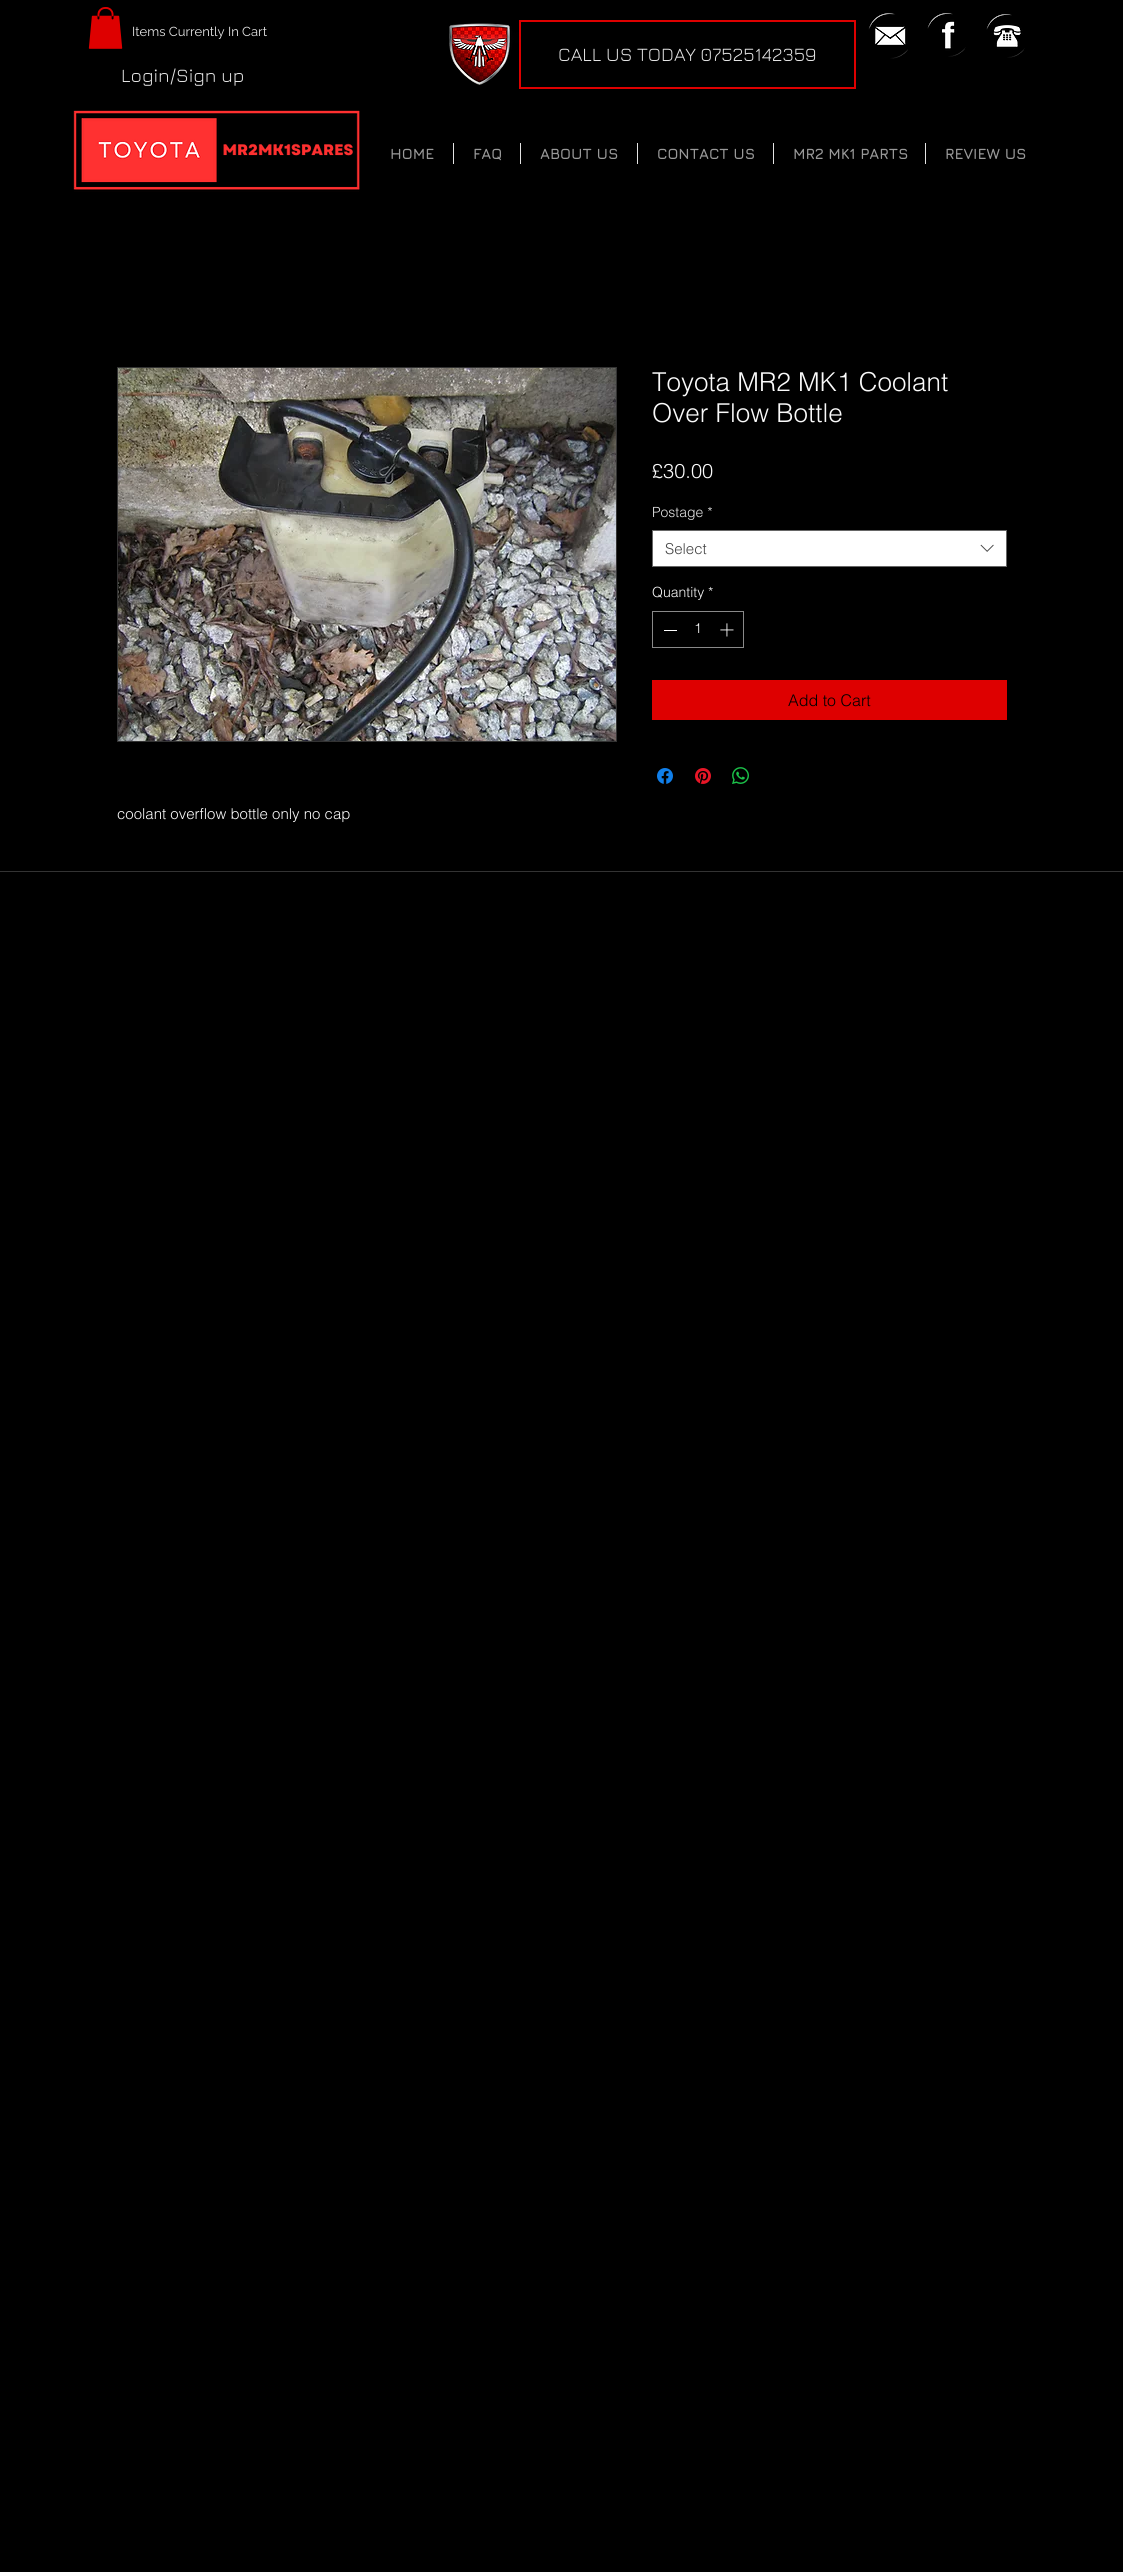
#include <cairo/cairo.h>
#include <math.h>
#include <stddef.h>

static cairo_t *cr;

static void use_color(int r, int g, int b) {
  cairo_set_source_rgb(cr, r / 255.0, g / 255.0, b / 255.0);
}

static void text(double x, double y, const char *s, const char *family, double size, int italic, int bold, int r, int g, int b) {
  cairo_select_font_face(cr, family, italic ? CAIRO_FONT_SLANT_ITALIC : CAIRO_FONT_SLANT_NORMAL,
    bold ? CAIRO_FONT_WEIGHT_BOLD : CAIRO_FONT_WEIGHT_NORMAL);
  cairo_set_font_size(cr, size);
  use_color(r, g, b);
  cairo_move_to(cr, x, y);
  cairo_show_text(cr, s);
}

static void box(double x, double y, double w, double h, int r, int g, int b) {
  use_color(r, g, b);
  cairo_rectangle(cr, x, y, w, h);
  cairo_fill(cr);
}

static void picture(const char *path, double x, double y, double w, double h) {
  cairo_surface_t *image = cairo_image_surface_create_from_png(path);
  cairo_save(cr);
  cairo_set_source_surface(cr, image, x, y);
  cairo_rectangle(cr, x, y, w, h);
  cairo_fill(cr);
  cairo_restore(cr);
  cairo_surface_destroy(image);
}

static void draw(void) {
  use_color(0, 0, 0);
  cairo_paint(cr);
  picture("img_01.png", 88, 7, 35, 42);
  cairo_rectangle(cr, 520, 21, 335, 67);
  use_color(222, 0, 0);
  cairo_stroke(cr);
  picture("img_02.png", 449, 23, 72, 62);
  picture("img_03.png", 868, 13, 40, 46);
  picture("img_04.png", 927, 13, 39, 44);
  picture("img_05.png", 986, 14, 39, 44);
  picture("img_06.png", 73, 110, 287, 82);
  box(453, 143, 1, 21, 228, 228, 228);
  box(520, 143, 1, 21, 228, 228, 228);
  box(637, 143, 1, 21, 228, 228, 228);
  box(773, 143, 1, 21, 228, 228, 228);
  box(925, 143, 1, 21, 228, 228, 228);
  use_color(255, 255, 255);
  cairo_rectangle(cr, 652.5, 530.5, 354, 36);
  cairo_fill_preserve(cr);
  use_color(102, 102, 102);
  cairo_set_line_width(cr, 1);
  cairo_stroke(cr);
  picture("img_07.png", 980, 544, 14, 8);
  cairo_rectangle(cr, 652.5, 611.5, 91, 36);
  use_color(137, 137, 137);
  cairo_stroke(cr);
  box(664, 630, 13, 1, 255, 255, 255);
  picture("img_08.png", 720, 623, 14, 14);
  box(652, 680, 355, 40, 222, 0, 0);
  picture("img_09.png", 657, 768, 16, 16);
  picture("img_10.png", 695, 768, 16, 16);
  picture("img_11.png", 732, 767, 17, 17);
  cairo_rectangle(cr, 117.5, 367.5, 499, 374);
  use_color(51, 51, 51);
  cairo_stroke(cr);
  picture("img_12.png", 118, 368, 498, 373);
  box(0, 871, 1123, 1, 51, 51, 51);
  text(132, 36, "Items Currently In Cart", "Raleway", 13, 0, 0, 228, 228, 228);
  text(558, 61, "CALL US TODAY 07525142359", "Jura", 19, 0, 0, 228, 228, 228);
  text(121, 82, "Login/Sign up", "Jura", 19, 0, 0, 228, 228, 228);
  text(390, 159, "HOME", "Jura", 15, 0, 1, 153, 153, 153);
  text(473, 159, "FAQ", "Jura", 15, 0, 1, 153, 153, 153);
  text(540, 159, "ABOUT US", "Jura", 15, 0, 1, 153, 153, 153);
  text(657, 159, "CONTACT US", "Jura", 15, 0, 1, 153, 153, 153);
  text(793, 159, "MR2 MK1 PARTS", "Jura", 15, 0, 1, 153, 153, 153);
  text(945, 159, "REVIEW US", "Jura", 15, 0, 1, 153, 153, 153);
  text(652, 391, "Toyota MR2 MK1 Coolant", "helvetica Light", 26, 0, 0, 250, 250, 250);
  text(652, 422, "Over Flow Bottle", "helvetica Light", 26, 0, 0, 250, 250, 250);
  text(652, 478, "£30.00", "helvetica Light", 20, 0, 0, 250, 250, 250);
  text(652, 517, "Postage *", "helvetica Light", 14, 0, 0, 228, 228, 228);
  text(665, 554, "Select", "helvetica Light", 15, 0, 0, 68, 68, 68);
  text(652, 597, "Quantity *", "helvetica Light", 14, 0, 0, 250, 250, 250);
  text(694, 633, "1", "helvetica Light", 14, 0, 0, 250, 250, 250);
  text(788, 706, "Add to Cart", "helvetica Light", 16, 0, 0, 0, 0, 0);
  text(117, 819, "coolant overflow bottle only no cap", "helvetica Light", 15, 0, 0, 250, 250, 250);
}

int main(void) {
  cairo_surface_t *surface = cairo_image_surface_create(CAIRO_FORMAT_RGB24, 1123, 2572);
  cr = cairo_create(surface);
  cairo_font_options_t *options = cairo_font_options_create();
  cairo_font_options_set_hint_metrics(options, CAIRO_HINT_METRICS_OFF);
  cairo_font_options_set_hint_style(options, CAIRO_HINT_STYLE_NONE);
  cairo_set_font_options(cr, options);
  cairo_set_miter_limit(cr, 4);
  draw();
  cairo_surface_write_to_png(surface, "out.png");
  cairo_font_options_destroy(options);
  cairo_destroy(cr);
  cairo_surface_destroy(surface);
  return 0;
}
